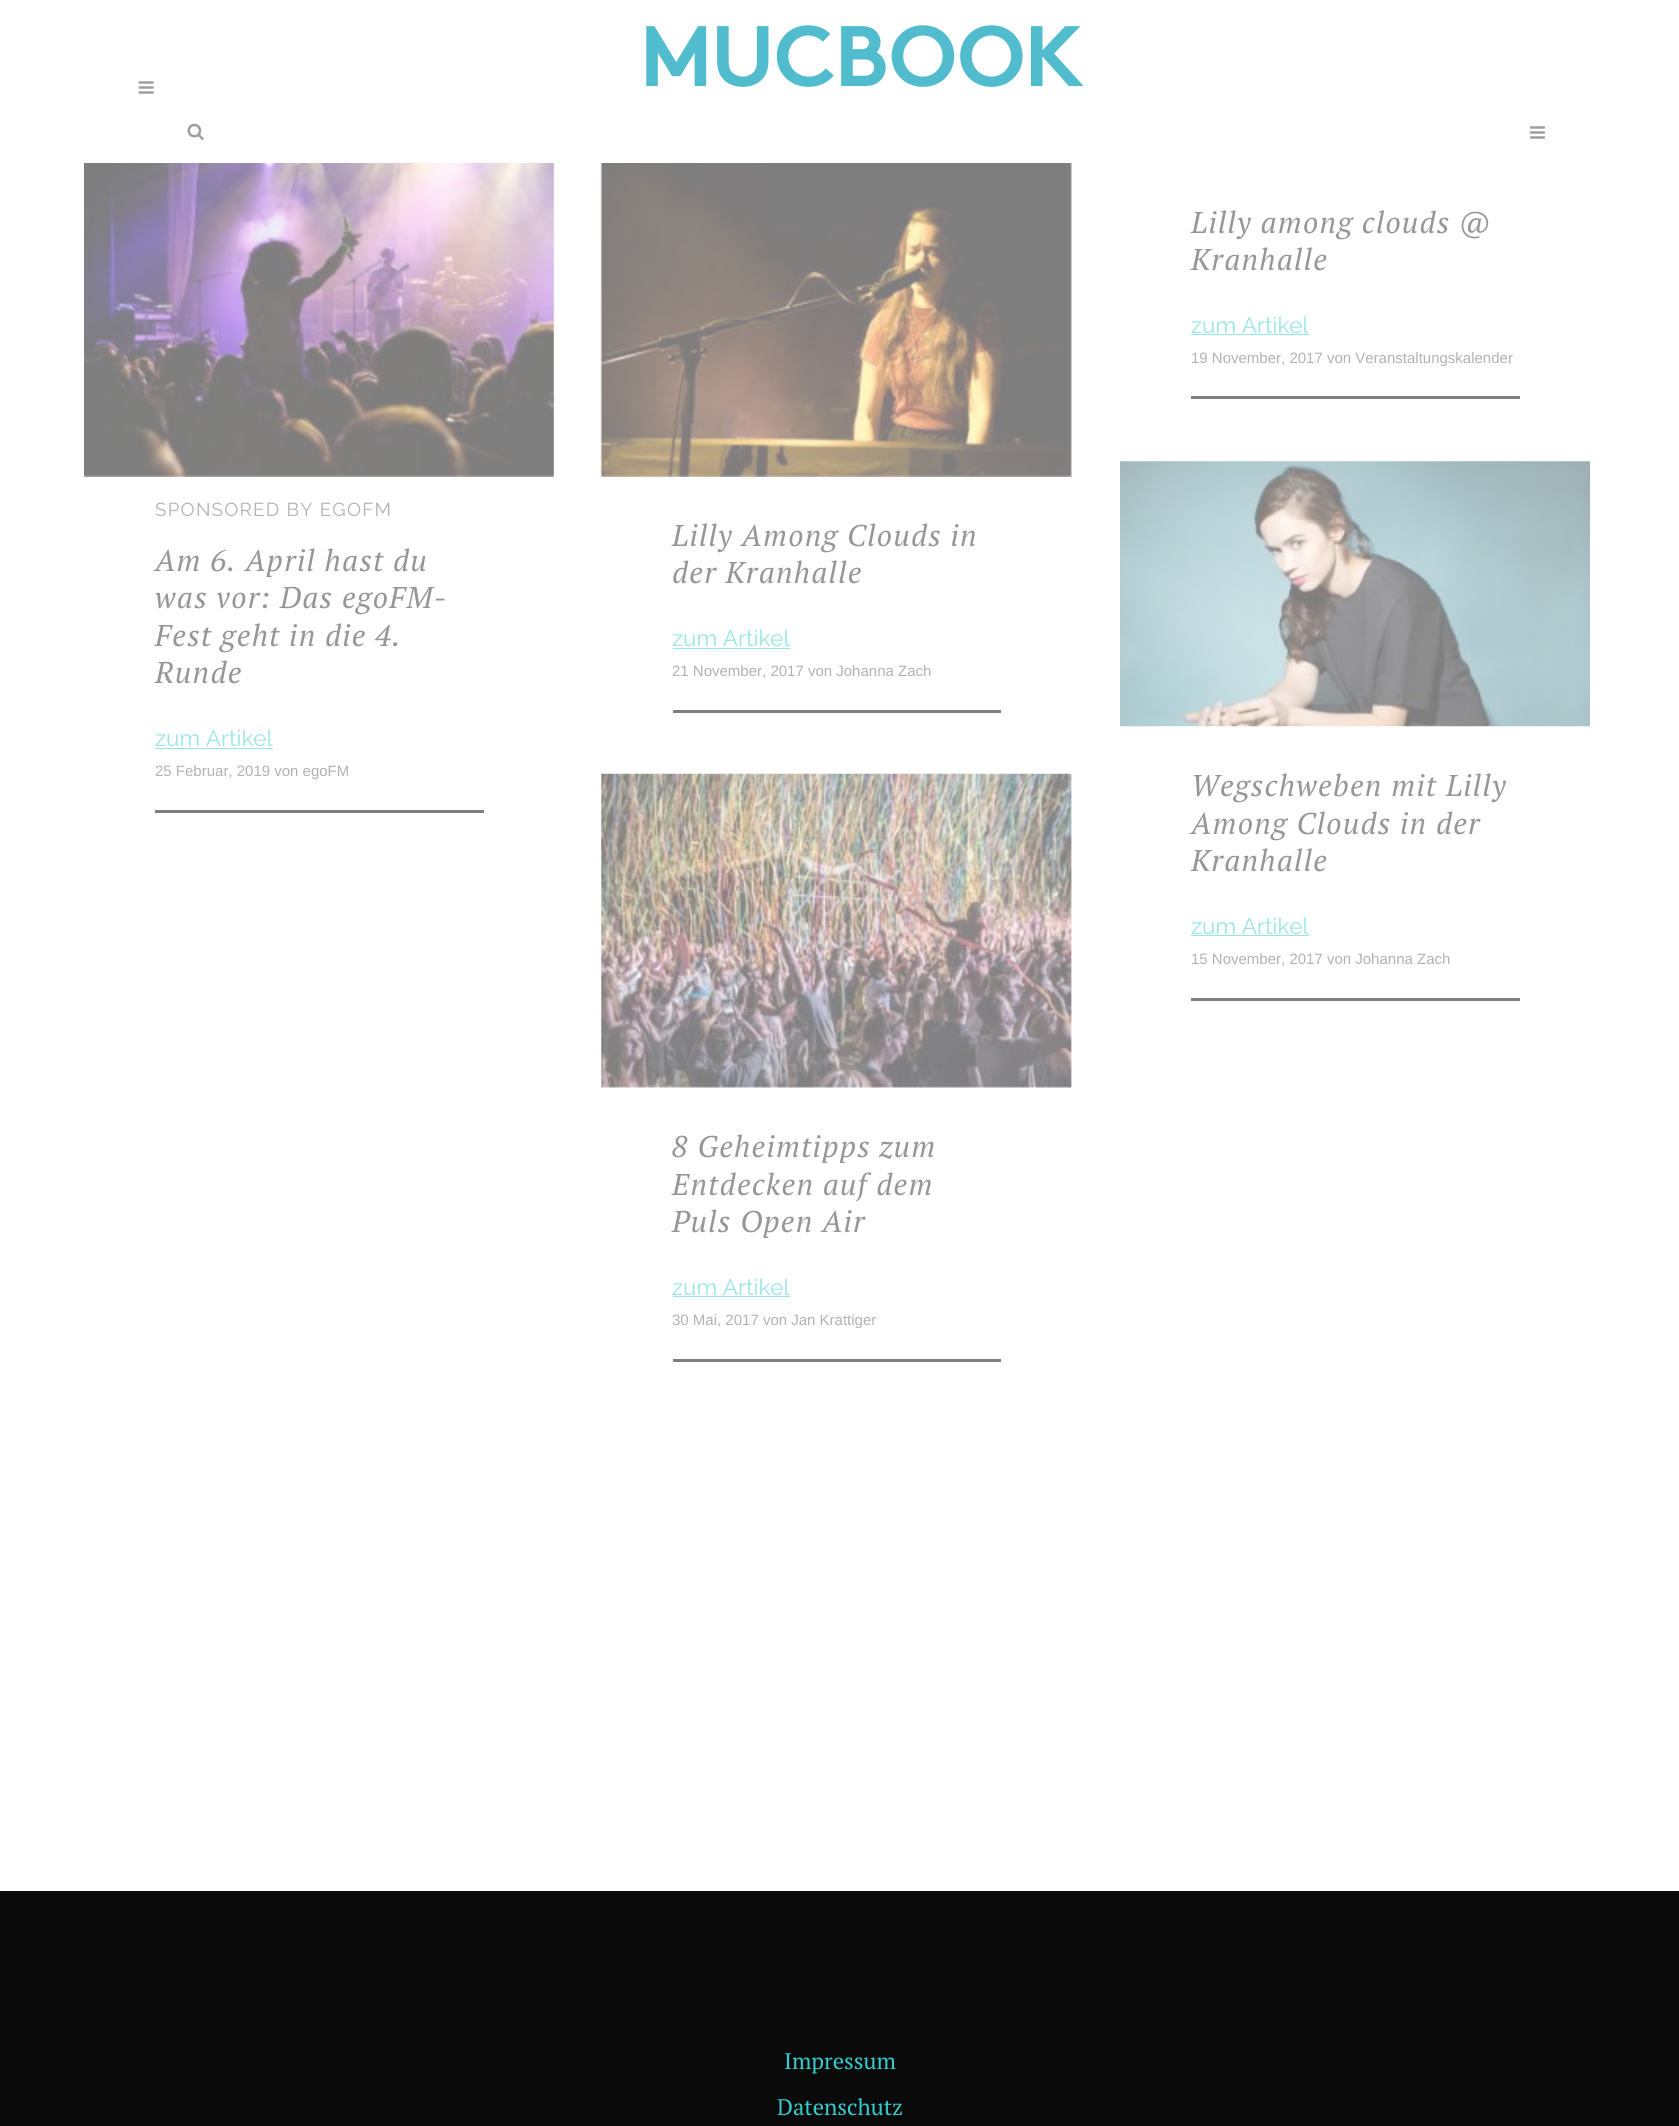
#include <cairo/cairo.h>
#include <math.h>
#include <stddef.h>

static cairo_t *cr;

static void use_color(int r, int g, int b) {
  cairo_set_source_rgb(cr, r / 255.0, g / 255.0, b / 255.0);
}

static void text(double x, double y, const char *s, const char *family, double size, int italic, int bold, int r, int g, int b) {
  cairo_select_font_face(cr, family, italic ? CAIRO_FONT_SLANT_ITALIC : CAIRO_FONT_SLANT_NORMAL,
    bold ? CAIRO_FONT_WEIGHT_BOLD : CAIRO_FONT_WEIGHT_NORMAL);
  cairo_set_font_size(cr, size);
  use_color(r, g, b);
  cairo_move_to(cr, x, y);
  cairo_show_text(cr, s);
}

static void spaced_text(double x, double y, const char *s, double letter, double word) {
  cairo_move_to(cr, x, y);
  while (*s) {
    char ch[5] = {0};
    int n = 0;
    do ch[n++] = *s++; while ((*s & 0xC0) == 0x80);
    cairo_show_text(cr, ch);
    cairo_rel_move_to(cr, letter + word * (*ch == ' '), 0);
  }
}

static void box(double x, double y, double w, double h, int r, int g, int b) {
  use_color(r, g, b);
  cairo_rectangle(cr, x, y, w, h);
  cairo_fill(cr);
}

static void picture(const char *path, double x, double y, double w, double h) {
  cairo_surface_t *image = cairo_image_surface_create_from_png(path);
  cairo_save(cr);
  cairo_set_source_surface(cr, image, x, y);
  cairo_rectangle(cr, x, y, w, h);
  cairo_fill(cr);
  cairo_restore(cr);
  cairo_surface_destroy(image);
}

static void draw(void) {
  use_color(255, 255, 255);
  cairo_paint(cr);
  picture("img_01.png", 138, 81, 16, 13);
  picture("img_02.png", 646, 25, 438, 62);
  picture("img_03.png", 187, 123, 17, 17);
  picture("img_04.png", 1530, 126, 15, 13);
  box(1191, 396, 329, 3, 126, 126, 126);
  box(1191, 334, 118, 1, 152, 229, 229);
  picture("img_05.png", 84, 163, 470, 314);
  box(155, 810, 329, 3, 126, 126, 126);
  box(155, 748, 118, 1, 152, 229, 229);
  picture("img_06.png", 600, 163, 472, 314);
  box(673, 710, 328, 3, 126, 126, 126);
  box(673, 648, 117, 1, 152, 229, 229);
  picture("img_07.png", 1120, 461, 470, 266);
  box(1191, 998, 329, 3, 126, 126, 126);
  box(1191, 935, 118, 1, 152, 229, 229);
  picture("img_08.png", 601, 773, 471, 315);
  box(673, 1359, 328, 3, 126, 126, 126);
  box(673, 1296, 117, 1, 152, 229, 229);
  box(0, 1891, 1679, 235, 10, 10, 10);
  cairo_select_font_face(cr, "PT Serif", CAIRO_FONT_SLANT_ITALIC, CAIRO_FONT_WEIGHT_NORMAL);
  cairo_set_font_size(cr, 30);
  use_color(150, 150, 150);
  spaced_text(1191, 233, "Lilly among clouds @", 1.25, 0);
  spaced_text(1191, 270, "Kranhalle", 1.25, 0);
  text(1191, 333, "zum Artikel", "Raleway Thin", 22.5, 0, 0, 152, 229, 229);
  text(1191, 363, "19 November, 2017 von Veranstaltungskalender", "Liberation Sans", 15, 0, 0, 178, 178, 178);
  cairo_select_font_face(cr, "Raleway Thin", CAIRO_FONT_SLANT_NORMAL, CAIRO_FONT_WEIGHT_NORMAL);
  cairo_set_font_size(cr, 18.75);
  spaced_text(155, 516, "SPONSORED BY EGOFM", 1.25, 0);
  cairo_select_font_face(cr, "PT Serif", CAIRO_FONT_SLANT_ITALIC, CAIRO_FONT_WEIGHT_NORMAL);
  cairo_set_font_size(cr, 30);
  use_color(150, 150, 150);
  spaced_text(155, 571, "Am 6. April hast du", 1.25, 0);
  spaced_text(155, 608, "was vor: Das egoFM-", 1.25, 0);
  spaced_text(155, 646, "Fest geht in die 4.", 1.25, 0);
  spaced_text(155, 683, "Runde", 1.25, 0);
  text(155, 746, "zum Artikel", "Raleway Thin", 22.5, 0, 0, 152, 229, 229);
  text(155, 776, "25 Februar, 2019 von egoFM", "Liberation Sans", 15, 0, 0, 178, 178, 178);
  cairo_select_font_face(cr, "PT Serif", CAIRO_FONT_SLANT_ITALIC, CAIRO_FONT_WEIGHT_NORMAL);
  cairo_set_font_size(cr, 30);
  use_color(150, 150, 150);
  spaced_text(672, 546, "Lilly Among Clouds in", 1.25, 0);
  spaced_text(672, 583, "der Kranhalle", 1.25, 0);
  text(672, 646, "zum Artikel", "Raleway Thin", 22.5, 0, 0, 152, 229, 229);
  text(672, 676, "21 November, 2017 von Johanna Zach", "Liberation Sans", 15, 0, 0, 178, 178, 178);
  cairo_select_font_face(cr, "PT Serif", CAIRO_FONT_SLANT_ITALIC, CAIRO_FONT_WEIGHT_NORMAL);
  cairo_set_font_size(cr, 30);
  use_color(150, 150, 150);
  spaced_text(1191, 796, "Wegschweben mit Lilly", 1.25, 0);
  spaced_text(1191, 834, "Among Clouds in der", 1.25, 0);
  spaced_text(1191, 871, "Kranhalle", 1.25, 0);
  text(1191, 934, "zum Artikel", "Raleway Thin", 22.5, 0, 0, 152, 229, 229);
  text(1191, 964, "15 November, 2017 von Johanna Zach", "Liberation Sans", 15, 0, 0, 178, 178, 178);
  cairo_select_font_face(cr, "PT Serif", CAIRO_FONT_SLANT_ITALIC, CAIRO_FONT_WEIGHT_NORMAL);
  cairo_set_font_size(cr, 30);
  use_color(150, 150, 150);
  spaced_text(672, 1157, "8 Geheimtipps zum", 1.25, 0);
  spaced_text(672, 1195, "Entdecken auf dem", 1.25, 0);
  spaced_text(672, 1232, "Puls Open Air", 1.25, 0);
  text(672, 1295, "zum Artikel", "Raleway Thin", 22.5, 0, 0, 152, 229, 229);
  text(672, 1325, "30 Mai, 2017 von Jan Krattiger", "Liberation Sans", 15, 0, 0, 178, 178, 178);
  text(784, 2069, "Impressum", "PT Serif", 22.5, 0, 0, 51, 204, 204);
  text(777, 2115, "Datenschutz", "PT Serif", 22.5, 0, 0, 51, 204, 204);
}

int main(void) {
  cairo_surface_t *surface = cairo_image_surface_create(CAIRO_FORMAT_RGB24, 1679, 2126);
  cr = cairo_create(surface);
  cairo_font_options_t *options = cairo_font_options_create();
  cairo_font_options_set_hint_metrics(options, CAIRO_HINT_METRICS_OFF);
  cairo_font_options_set_hint_style(options, CAIRO_HINT_STYLE_NONE);
  cairo_set_font_options(cr, options);
  cairo_set_miter_limit(cr, 4);
  draw();
  cairo_surface_write_to_png(surface, "out.png");
  cairo_font_options_destroy(options);
  cairo_destroy(cr);
  cairo_surface_destroy(surface);
  return 0;
}
